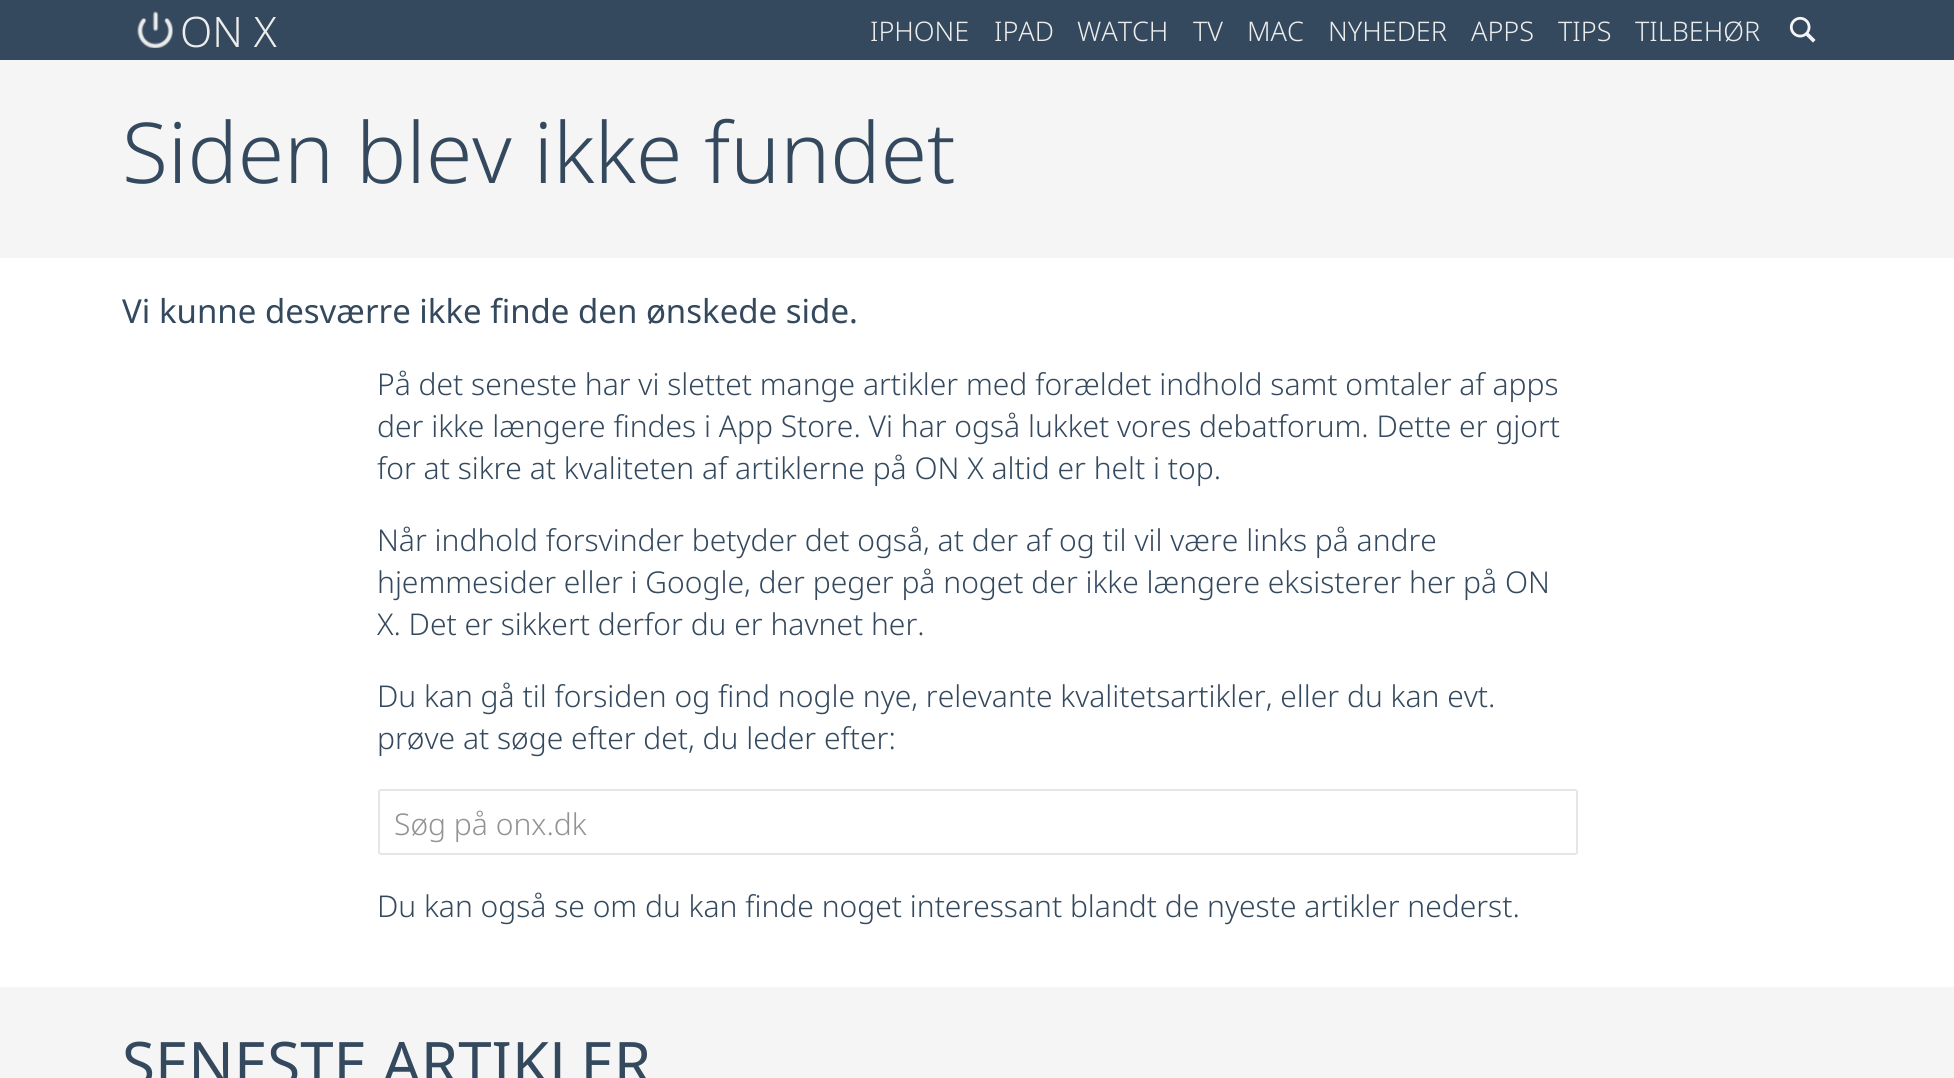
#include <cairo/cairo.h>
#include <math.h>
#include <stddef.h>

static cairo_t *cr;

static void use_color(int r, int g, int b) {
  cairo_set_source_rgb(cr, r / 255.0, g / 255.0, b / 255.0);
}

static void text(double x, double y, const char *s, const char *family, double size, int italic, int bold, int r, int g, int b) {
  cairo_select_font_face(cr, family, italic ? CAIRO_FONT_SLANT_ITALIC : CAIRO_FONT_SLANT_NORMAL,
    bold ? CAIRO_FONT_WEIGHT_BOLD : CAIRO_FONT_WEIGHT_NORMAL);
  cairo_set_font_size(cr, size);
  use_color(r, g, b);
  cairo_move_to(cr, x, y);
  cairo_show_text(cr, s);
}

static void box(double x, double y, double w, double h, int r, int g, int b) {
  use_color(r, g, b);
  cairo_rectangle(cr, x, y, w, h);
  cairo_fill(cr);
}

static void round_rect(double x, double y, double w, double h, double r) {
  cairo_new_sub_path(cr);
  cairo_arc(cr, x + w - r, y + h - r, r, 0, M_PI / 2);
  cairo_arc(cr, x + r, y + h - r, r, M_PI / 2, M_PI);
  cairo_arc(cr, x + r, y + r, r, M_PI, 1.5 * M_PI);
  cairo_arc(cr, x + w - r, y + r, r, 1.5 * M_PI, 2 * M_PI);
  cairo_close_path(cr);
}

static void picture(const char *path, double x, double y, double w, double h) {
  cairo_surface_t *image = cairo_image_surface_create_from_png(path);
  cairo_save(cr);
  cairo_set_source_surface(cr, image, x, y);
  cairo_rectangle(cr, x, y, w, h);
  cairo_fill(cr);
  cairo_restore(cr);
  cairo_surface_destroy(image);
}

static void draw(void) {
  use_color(255, 255, 255);
  cairo_paint(cr);
  box(0, 0, 1954, 60, 52, 73, 94);
  picture("img_01.png", 137, 11, 36, 37);
  picture("img_02.png", 1789, 16, 27, 27);
  box(0, 60, 1954, 198, 245, 245, 245);
  round_rect(379, 790, 1198, 64, 2);
  use_color(230, 230, 230);
  cairo_stroke(cr);
  box(0, 987, 1954, 91, 245, 245, 245);
  text(180, 47, "ON X", "Noto Sans Light", 42, 0, 0, 236, 236, 236);
  text(870, 41, "IPHONE", "Noto Sans Light", 27, 0, 0, 236, 236, 236);
  text(994, 41, "IPAD", "Noto Sans Light", 27, 0, 0, 236, 236, 236);
  text(1077, 41, "WATCH", "Noto Sans Light", 27, 0, 0, 236, 236, 236);
  text(1193, 41, "TV", "Noto Sans Light", 27, 0, 0, 236, 236, 236);
  text(1247, 41, "MAC", "Noto Sans Light", 27, 0, 0, 236, 236, 236);
  text(1328, 41, "NYHEDER", "Noto Sans Light", 27, 0, 0, 236, 236, 236);
  text(1471, 41, "APPS", "Noto Sans Light", 27, 0, 0, 236, 236, 236);
  text(1558, 41, "TIPS", "Noto Sans Light", 27, 0, 0, 236, 236, 236);
  text(1635, 41, "TILBEHØR", "Noto Sans Light", 27, 0, 0, 236, 236, 236);
  text(122, 183, "Siden blev ikke fundet", "Noto Sans Light", 84, 0, 0, 52, 73, 94);
  text(122, 323, "Vi kunne desværre ikke finde den ønskede side.", "Noto Sans", 33, 0, 0, 52, 73, 94);
  text(377, 395, "På det seneste har vi slettet mange artikler med forældet indhold samt omtaler af apps", "Noto Sans Light", 30, 0, 0, 52, 73, 94);
  text(377, 437, "der ikke længere findes i App Store. Vi har også lukket vores debatforum. Dette er gjort", "Noto Sans Light", 30, 0, 0, 52, 73, 94);
  text(377, 479, "for at sikre at kvaliteten af artiklerne på ON X altid er helt i top.", "Noto Sans Light", 30, 0, 0, 52, 73, 94);
  text(377, 551, "Når indhold forsvinder betyder det også, at der af og til vil være links på andre", "Noto Sans Light", 30, 0, 0, 52, 73, 94);
  text(377, 593, "hjemmesider eller i Google, der peger på noget der ikke længere eksisterer her på ON", "Noto Sans Light", 30, 0, 0, 52, 73, 94);
  text(377, 635, "X. Det er sikkert derfor du er havnet her.", "Noto Sans Light", 30, 0, 0, 52, 73, 94);
  text(377, 707, "Du kan gå til forsiden og find nogle nye, relevante kvalitetsartikler, eller du kan evt.", "Noto Sans Light", 30, 0, 0, 52, 73, 94);
  text(377, 749, "prøve at søge efter det, du leder efter:", "Noto Sans Light", 30, 0, 0, 52, 73, 94);
  text(394, 835, "Søg på onx.dk", "Noto Sans Light", 30, 0, 0, 147, 147, 147);
  text(377, 917, "Du kan også se om du kan finde noget interessant blandt de nyeste artikler nederst.", "Noto Sans Light", 30, 0, 0, 52, 73, 94);
  text(122, 1085, "SENESTE ARTIKLER", "Noto Sans", 60, 0, 0, 52, 73, 94);
}

int main(void) {
  cairo_surface_t *surface = cairo_image_surface_create(CAIRO_FORMAT_RGB24, 1954, 1078);
  cr = cairo_create(surface);
  cairo_font_options_t *options = cairo_font_options_create();
  cairo_font_options_set_hint_metrics(options, CAIRO_HINT_METRICS_OFF);
  cairo_font_options_set_hint_style(options, CAIRO_HINT_STYLE_NONE);
  cairo_set_font_options(cr, options);
  cairo_set_miter_limit(cr, 4);
  draw();
  cairo_surface_write_to_png(surface, "out.png");
  cairo_font_options_destroy(options);
  cairo_destroy(cr);
  cairo_surface_destroy(surface);
  return 0;
}
